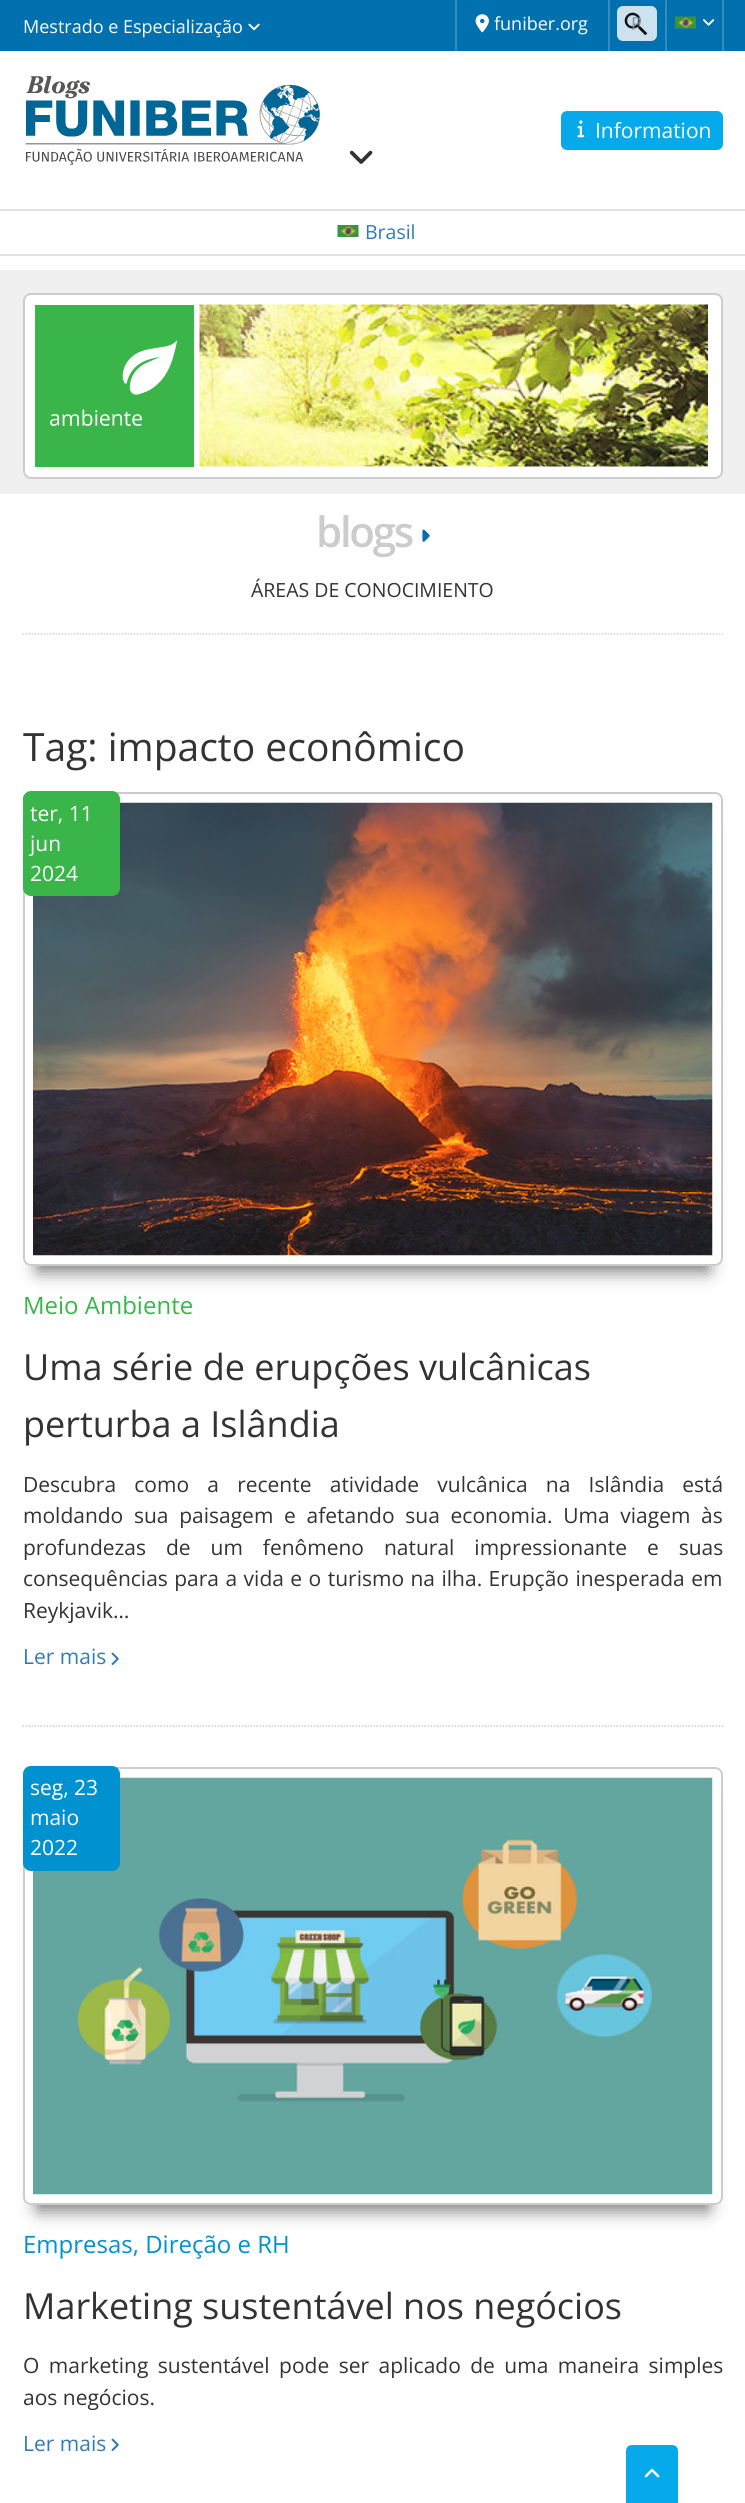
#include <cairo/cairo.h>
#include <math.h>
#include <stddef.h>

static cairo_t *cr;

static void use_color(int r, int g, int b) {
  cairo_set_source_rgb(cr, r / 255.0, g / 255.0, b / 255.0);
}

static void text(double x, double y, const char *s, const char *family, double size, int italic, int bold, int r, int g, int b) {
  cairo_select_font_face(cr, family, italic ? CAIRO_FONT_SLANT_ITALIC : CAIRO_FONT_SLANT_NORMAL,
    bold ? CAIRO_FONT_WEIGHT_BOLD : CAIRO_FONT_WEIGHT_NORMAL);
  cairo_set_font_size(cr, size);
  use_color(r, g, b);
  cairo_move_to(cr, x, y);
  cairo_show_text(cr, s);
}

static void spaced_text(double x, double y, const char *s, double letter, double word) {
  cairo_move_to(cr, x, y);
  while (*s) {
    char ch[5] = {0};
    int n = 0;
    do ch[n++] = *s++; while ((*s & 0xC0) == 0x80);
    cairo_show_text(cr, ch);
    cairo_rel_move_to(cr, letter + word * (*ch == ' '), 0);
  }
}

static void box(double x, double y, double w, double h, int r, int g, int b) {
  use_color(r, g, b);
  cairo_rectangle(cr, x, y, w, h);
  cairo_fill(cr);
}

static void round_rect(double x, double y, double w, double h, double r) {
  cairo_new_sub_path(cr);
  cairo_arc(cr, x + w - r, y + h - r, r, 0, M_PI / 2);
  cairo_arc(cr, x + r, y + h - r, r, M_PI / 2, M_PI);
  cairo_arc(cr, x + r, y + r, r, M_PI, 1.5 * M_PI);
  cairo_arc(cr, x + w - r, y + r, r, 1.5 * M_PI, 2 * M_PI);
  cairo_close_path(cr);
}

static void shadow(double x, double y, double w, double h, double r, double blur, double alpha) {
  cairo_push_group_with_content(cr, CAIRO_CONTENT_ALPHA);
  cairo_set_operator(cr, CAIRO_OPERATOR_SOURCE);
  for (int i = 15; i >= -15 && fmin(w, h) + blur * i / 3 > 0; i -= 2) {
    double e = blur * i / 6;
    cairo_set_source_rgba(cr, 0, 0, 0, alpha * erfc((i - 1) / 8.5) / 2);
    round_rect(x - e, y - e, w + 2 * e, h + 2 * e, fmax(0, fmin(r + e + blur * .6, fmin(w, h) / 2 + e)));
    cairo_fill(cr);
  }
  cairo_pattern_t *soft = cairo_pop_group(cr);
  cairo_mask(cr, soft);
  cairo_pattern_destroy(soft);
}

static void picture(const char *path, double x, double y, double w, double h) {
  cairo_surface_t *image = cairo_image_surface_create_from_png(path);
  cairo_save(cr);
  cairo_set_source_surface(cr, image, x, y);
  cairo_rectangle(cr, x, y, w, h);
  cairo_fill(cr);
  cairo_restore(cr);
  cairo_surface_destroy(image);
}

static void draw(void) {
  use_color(255, 255, 255);
  cairo_paint(cr);
  box(0, 0, 745, 51, 0, 113, 174);
  picture("img_01.png", 248, 23, 12, 8);
  box(608, 0, 2, 51, 51, 141, 190);
  box(455, 0, 2, 51, 51, 141, 190);
  picture("img_02.png", 475, 14, 14, 19);
  use_color(204, 226, 238);
  round_rect(617, 6, 40, 35, 6);
  cairo_fill(cr);
  picture("img_03.png", 624, 12, 24, 24);
  box(722, 0, 2, 51, 51, 141, 190);
  box(665, 0, 2, 51, 51, 141, 190);
  picture("img_04.png", 675, 16, 21, 13);
  picture("img_05.png", 703, 19, 12, 7);
  picture("img_06.png", 25, 76, 295, 89);
  use_color(6, 170, 235);
  round_rect(562, 112, 160, 37, 5);
  cairo_fill_preserve(cr);
  cairo_stroke(cr);
  picture("img_07.png", 577, 120, 8, 18);
  picture("img_08.png", 349, 150, 24, 14);
  box(0, 209, 745, 2, 226, 226, 227);
  box(0, 254, 745, 2, 226, 226, 227);
  picture("img_09.png", 337, 225, 22, 12);
  box(0, 270, 745, 224, 240, 240, 241);
  use_color(255, 255, 255);
  round_rect(24, 294, 698, 184, 7);
  cairo_fill_preserve(cr);
  use_color(204, 204, 204);
  cairo_stroke(cr);
  box(35, 305, 159, 162, 57, 181, 74);
  picture("img_10.png", 50, 340, 128, 86);
  picture("img_11.png", 199, 304, 509, 163);
  cairo_new_path(cr);
  cairo_move_to(cr, 22.5, 634);
  cairo_line_to(cr, 723, 634);
  use_color(211, 211, 213);
  cairo_set_line_width(cr, 1.5);
  cairo_set_dash(cr, (double[]){1.5, 1.5}, 2, 0);
  cairo_stroke(cr);
  picture("img_12.png", 422, 529, 8, 13);
  cairo_new_path(cr);
  cairo_move_to(cr, 22.5, 1726);
  cairo_line_to(cr, 723, 1726);
  use_color(204, 204, 204);
  cairo_stroke(cr);
  cairo_save(cr);
  cairo_set_fill_rule(cr, CAIRO_FILL_RULE_EVEN_ODD);
  cairo_new_path(cr);
  cairo_move_to(cr, 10, 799);
  cairo_line_to(cr, 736, 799);
  cairo_line_to(cr, 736, 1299);
  cairo_line_to(cr, 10, 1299);
  cairo_close_path(cr);
  cairo_move_to(cr, 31, 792);
  cairo_line_to(cr, 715, 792);
  cairo_curve_to(cr, 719.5, 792, 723, 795.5, 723, 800);
  cairo_line_to(cr, 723, 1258);
  cairo_curve_to(cr, 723, 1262.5, 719.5, 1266, 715, 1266);
  cairo_line_to(cr, 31, 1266);
  cairo_curve_to(cr, 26.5, 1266, 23, 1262.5, 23, 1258);
  cairo_line_to(cr, 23, 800);
  cairo_curve_to(cr, 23, 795.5, 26.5, 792, 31, 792);
  cairo_close_path(cr);
  cairo_clip(cr);
  use_color(0, 0, 0);
  shadow(38, 827, 670, 444, 0, 9, 0.55);
  cairo_restore(cr);
  round_rect(24, 793, 698, 472, 7);
  cairo_set_line_width(cr, 2);
  cairo_set_dash(cr, NULL, 0, 0);
  cairo_stroke(cr);
  picture("img_13.png", 33, 802, 680, 454);
  use_color(57, 181, 74);
  round_rect(23, 791, 97, 105, 8);
  cairo_fill(cr);
  picture("img_14.png", 111, 1652, 8, 13);
  cairo_save(cr);
  cairo_set_fill_rule(cr, CAIRO_FILL_RULE_EVEN_ODD);
  cairo_new_path(cr);
  cairo_move_to(cr, 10, 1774);
  cairo_line_to(cr, 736, 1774);
  cairo_line_to(cr, 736, 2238);
  cairo_line_to(cr, 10, 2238);
  cairo_close_path(cr);
  cairo_move_to(cr, 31, 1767);
  cairo_line_to(cr, 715, 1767);
  cairo_curve_to(cr, 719.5, 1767, 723, 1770.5, 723, 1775);
  cairo_line_to(cr, 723, 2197);
  cairo_curve_to(cr, 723, 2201.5, 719.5, 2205, 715, 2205);
  cairo_line_to(cr, 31, 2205);
  cairo_curve_to(cr, 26.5, 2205, 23, 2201.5, 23, 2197);
  cairo_line_to(cr, 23, 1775);
  cairo_curve_to(cr, 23, 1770.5, 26.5, 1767, 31, 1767);
  cairo_close_path(cr);
  cairo_clip(cr);
  use_color(0, 0, 0);
  shadow(38, 1802, 670, 408, 0, 9, 0.55);
  cairo_restore(cr);
  round_rect(24, 1768, 698, 436, 7);
  use_color(204, 204, 204);
  cairo_stroke(cr);
  picture("img_15.png", 33, 1777, 680, 418);
  use_color(0, 145, 208);
  round_rect(23, 1766, 97, 105, 8);
  cairo_fill(cr);
  picture("img_14.png", 111, 2438, 8, 13);
  use_color(6, 170, 235);
  cairo_new_path(cr);
  cairo_move_to(cr, 632, 2445);
  cairo_line_to(cr, 672, 2445);
  cairo_curve_to(cr, 675.5, 2445, 678, 2447.5, 678, 2451);
  cairo_line_to(cr, 678, 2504);
  cairo_line_to(cr, 626, 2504);
  cairo_line_to(cr, 626, 2451);
  cairo_curve_to(cr, 626, 2447.5, 628.5, 2445, 632, 2445);
  cairo_close_path(cr);
  cairo_fill(cr);
  picture("img_16.png", 644, 2468, 16, 10);
  text(23, 33, "Mestrado e Especialização", "Open Sans", 18, 0, 0, 255, 255, 255);
  text(494, 30, "funiber.org", "Open Sans", 18, 0, 0, 255, 255, 255);
  text(631, 30, "P", "Open Sans", 18, 0, 0, 133, 148, 156);
  text(595, 138, "Information", "Open Sans", 21, 0, 0, 255, 255, 255);
  text(365, 239, "Brasil", "Open Sans", 19.5, 0, 0, 51, 122, 183);
  cairo_select_font_face(cr, "Open Sans SemiBold", CAIRO_FONT_SLANT_NORMAL, CAIRO_FONT_WEIGHT_NORMAL);
  cairo_set_font_size(cr, 42);
  use_color(204, 204, 204);
  spaced_text(316, 547, "blogs", -2.25, 0);
  text(251, 597, "ÁREAS DE CONOCIMIENTO", "Open Sans", 19.5, 0, 0, 51, 51, 51);
  text(23, 761, "Tag: impacto econômico", "Open Sans", 39, 0, 0, 51, 51, 51);
  text(30, 821, "ter, 11", "Open Sans", 21, 0, 0, 255, 255, 255);
  text(30, 851, "jun", "Open Sans", 21, 0, 0, 255, 255, 255);
  text(30, 881, "2024", "Open Sans", 21, 0, 0, 255, 255, 255);
  text(23, 1314, "Meio Ambiente", "Open Sans", 24, 0, 0, 57, 181, 74);
  text(23, 1380, "Uma série de erupções vulcânicas", "Open Sans", 36, 0, 0, 51, 51, 51);
  text(23, 1437, "perturba a Islândia", "Open Sans", 36, 0, 0, 51, 51, 51);
  cairo_set_font_size(cr, 21);
  spaced_text(23, 1492, "Descubra como a recente atividade vulcânica na Islândia está", 0, 12.75);
  spaced_text(23, 1523, "moldando sua paisagem e afetando sua economia. Uma viagem às", 0, 5.25);
  spaced_text(23, 1555, "profundezas de um fenômeno natural impressionante e suas", 0, 14.5);
  spaced_text(23, 1586, "consequências para a vida e o turismo na ilha. Erupção inesperada em", 0, 1);
  text(23, 1618, "Reykjavik…", "Open Sans", 21, 0, 0, 51, 51, 51);
  text(23, 1664, "Ler mais", "Open Sans", 21, 0, 0, 51, 122, 183);
  text(30, 1795, "seg, 23", "Open Sans", 21, 0, 0, 255, 255, 255);
  text(30, 1825, "maio", "Open Sans", 21, 0, 0, 255, 255, 255);
  text(30, 1855, "2022", "Open Sans", 21, 0, 0, 255, 255, 255);
  text(23, 2253, "Empresas, Direção e RH", "Open Sans", 24, 0, 0, 0, 145, 208);
  text(23, 2319, "Marketing sustentável nos negócios", "Open Sans", 36, 0, 0, 51, 51, 51);
  cairo_set_font_size(cr, 21);
  spaced_text(23, 2373, "O marketing sustentável pode ser aplicado de uma maneira simples", 0, 4);
  text(23, 2405, "aos negócios.", "Open Sans", 21, 0, 0, 51, 51, 51);
  text(23, 2451, "Ler mais", "Open Sans", 21, 0, 0, 51, 122, 183);
}

int main(void) {
  cairo_surface_t *surface = cairo_image_surface_create(CAIRO_FORMAT_RGB24, 745, 2503);
  cr = cairo_create(surface);
  cairo_font_options_t *options = cairo_font_options_create();
  cairo_font_options_set_hint_metrics(options, CAIRO_HINT_METRICS_OFF);
  cairo_font_options_set_hint_style(options, CAIRO_HINT_STYLE_NONE);
  cairo_set_font_options(cr, options);
  cairo_set_miter_limit(cr, 4);
  draw();
  cairo_surface_write_to_png(surface, "out.png");
  cairo_font_options_destroy(options);
  cairo_destroy(cr);
  cairo_surface_destroy(surface);
  return 0;
}
